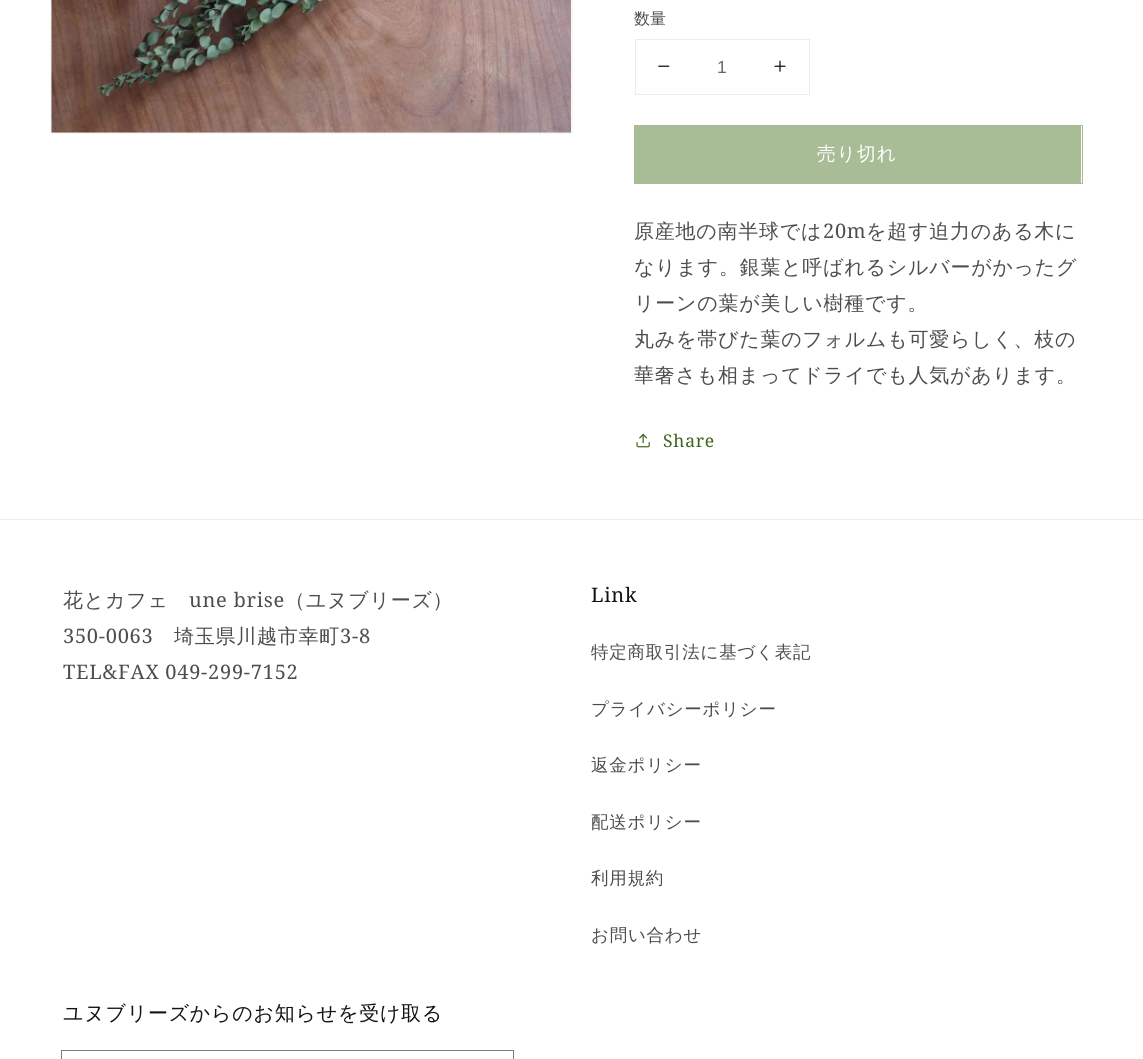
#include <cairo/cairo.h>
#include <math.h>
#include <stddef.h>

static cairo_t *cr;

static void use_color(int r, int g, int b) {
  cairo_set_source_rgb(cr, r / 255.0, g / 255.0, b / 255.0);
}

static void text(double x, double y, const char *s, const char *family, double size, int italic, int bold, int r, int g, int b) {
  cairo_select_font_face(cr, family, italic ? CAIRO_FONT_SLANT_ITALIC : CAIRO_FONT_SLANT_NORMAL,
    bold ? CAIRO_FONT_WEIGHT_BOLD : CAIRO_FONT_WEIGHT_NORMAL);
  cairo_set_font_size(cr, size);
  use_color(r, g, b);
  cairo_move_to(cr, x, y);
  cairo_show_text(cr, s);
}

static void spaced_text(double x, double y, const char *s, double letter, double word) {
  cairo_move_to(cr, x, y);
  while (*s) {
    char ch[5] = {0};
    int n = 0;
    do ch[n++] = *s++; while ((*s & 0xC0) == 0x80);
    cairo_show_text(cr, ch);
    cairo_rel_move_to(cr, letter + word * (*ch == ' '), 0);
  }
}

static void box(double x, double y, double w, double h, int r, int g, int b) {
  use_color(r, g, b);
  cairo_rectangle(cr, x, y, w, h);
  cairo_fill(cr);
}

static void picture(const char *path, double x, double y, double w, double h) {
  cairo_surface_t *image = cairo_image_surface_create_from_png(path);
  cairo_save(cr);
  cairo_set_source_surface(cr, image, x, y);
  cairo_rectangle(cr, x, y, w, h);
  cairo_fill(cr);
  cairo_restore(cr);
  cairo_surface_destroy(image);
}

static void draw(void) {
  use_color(255, 255, 255);
  cairo_paint(cr);
  cairo_rectangle(cr, 50.5, -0.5, 522, 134);
  use_color(246, 246, 246);
  cairo_set_line_width(cr, 1);
  cairo_stroke(cr);
  picture("img_01.png", 51, 0, 521, 133);
  cairo_rectangle(cr, 635.5, 39.5, 174, 55);
  use_color(236, 236, 236);
  cairo_stroke(cr);
  picture("img_02.png", 658, 65, 12, 2);
  picture("img_03.png", 774, 60, 12, 12);
  cairo_rectangle(cr, 634.5, 125.5, 448, 58);
  use_color(168, 188, 150);
  cairo_stroke(cr);
  box(635, 126, 446, 57, 168, 188, 150);
  picture("img_04.png", 636, 433, 14, 15);
  box(0, 519, 1143, 1, 236, 236, 236);
  cairo_rectangle(cr, 61.5, 1050.5, 452, 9);
  use_color(125, 125, 125);
  cairo_stroke(cr);
  text(634, 24, "数量", "WenQuanYi Zen Hei Medium", 16, 0, 0, 77, 77, 77);
  text(717, 73, "1", "Liberation Sans", 17.5, 0, 0, 104, 104, 104);
  cairo_select_font_face(cr, "WenQuanYi Zen Hei Medium", CAIRO_FONT_SLANT_NORMAL, CAIRO_FONT_WEIGHT_NORMAL);
  cairo_set_font_size(cr, 18.75);
  use_color(255, 255, 255);
  spaced_text(817, 160, "売り切れ", 1, 0);
  cairo_set_font_size(cr, 20);
  use_color(77, 77, 77);
  spaced_text(634, 238, "原産地の南半球では", 0.75, 0);
  cairo_select_font_face(cr, "Noto Serif", CAIRO_FONT_SLANT_NORMAL, CAIRO_FONT_WEIGHT_NORMAL);
  spaced_text(823, 238, "20m", 0.75, 0);
  cairo_select_font_face(cr, "WenQuanYi Zen Hei Medium", CAIRO_FONT_SLANT_NORMAL, CAIRO_FONT_WEIGHT_NORMAL);
  spaced_text(866, 238, "を超す迫力のある木に", 0.75, 0);
  spaced_text(634, 274, "なります。銀葉と呼ばれるシルバーがかったグ", 0.75, 0);
  spaced_text(634, 310, "リーンの葉が美しい樹種です。", 0.75, 0);
  spaced_text(634, 346, "丸みを帯びた葉のフォルムも可愛らしく、枝の", 0.75, 0);
  spaced_text(634, 382, "華奢さも相まってドライでも人気があります。", 0.75, 0);
  cairo_select_font_face(cr, "Noto Serif", CAIRO_FONT_SLANT_NORMAL, CAIRO_FONT_WEIGHT_NORMAL);
  cairo_set_font_size(cr, 17.5);
  use_color(62, 99, 29);
  spaced_text(663, 447, "Share", 0.75, 0);
  cairo_select_font_face(cr, "WenQuanYi Zen Hei Medium", CAIRO_FONT_SLANT_NORMAL, CAIRO_FONT_WEIGHT_NORMAL);
  cairo_set_font_size(cr, 20);
  use_color(77, 77, 77);
  spaced_text(63, 607, "花とカフェ", 0.75, 0);
  cairo_select_font_face(cr, "Noto Serif", CAIRO_FONT_SLANT_NORMAL, CAIRO_FONT_WEIGHT_NORMAL);
  spaced_text(189, 607, "une brise", 0.75, 0);
  cairo_select_font_face(cr, "WenQuanYi Zen Hei Medium", CAIRO_FONT_SLANT_NORMAL, CAIRO_FONT_WEIGHT_NORMAL);
  spaced_text(285, 607, "（ユヌブリーズ）", 0.75, 0);
  cairo_select_font_face(cr, "Noto Serif", CAIRO_FONT_SLANT_NORMAL, CAIRO_FONT_WEIGHT_NORMAL);
  spaced_text(63, 643, "350-0063", 0.75, 0);
  cairo_select_font_face(cr, "WenQuanYi Zen Hei Medium", CAIRO_FONT_SLANT_NORMAL, CAIRO_FONT_WEIGHT_NORMAL);
  spaced_text(174, 643, "埼玉県川越市幸町", 0.75, 0);
  cairo_select_font_face(cr, "Noto Serif", CAIRO_FONT_SLANT_NORMAL, CAIRO_FONT_WEIGHT_NORMAL);
  spaced_text(340, 643, "3-8", 0.75, 0);
  spaced_text(63, 679, "TEL&FAX 049-299-7152", 0.75, 0);
  use_color(18, 18, 18);
  spaced_text(591, 602, "Link", 0.75, 0);
  cairo_select_font_face(cr, "WenQuanYi Zen Hei Medium", CAIRO_FONT_SLANT_NORMAL, CAIRO_FONT_WEIGHT_NORMAL);
  cairo_set_font_size(cr, 17.5);
  use_color(77, 77, 77);
  spaced_text(591, 658, "特定商取引法に基づく表記", 0.75, 0);
  spaced_text(591, 715, "プライバシーポリシー", 0.75, 0);
  spaced_text(591, 771, "返金ポリシー", 0.75, 0);
  spaced_text(591, 828, "配送ポリシー", 0.75, 0);
  spaced_text(591, 884, "利用規約", 0.75, 0);
  spaced_text(591, 941, "お問い合わせ", 0.75, 0);
  cairo_set_font_size(cr, 20);
  use_color(18, 18, 18);
  spaced_text(63, 1020, "ユヌブリーズからのお知らせを受け取る", 0.75, 0);
}

int main(void) {
  cairo_surface_t *surface = cairo_image_surface_create(CAIRO_FORMAT_RGB24, 1143, 1059);
  cr = cairo_create(surface);
  cairo_font_options_t *options = cairo_font_options_create();
  cairo_font_options_set_hint_metrics(options, CAIRO_HINT_METRICS_OFF);
  cairo_font_options_set_hint_style(options, CAIRO_HINT_STYLE_NONE);
  cairo_set_font_options(cr, options);
  cairo_set_miter_limit(cr, 4);
  draw();
  cairo_surface_write_to_png(surface, "out.png");
  cairo_font_options_destroy(options);
  cairo_destroy(cr);
  cairo_surface_destroy(surface);
  return 0;
}
